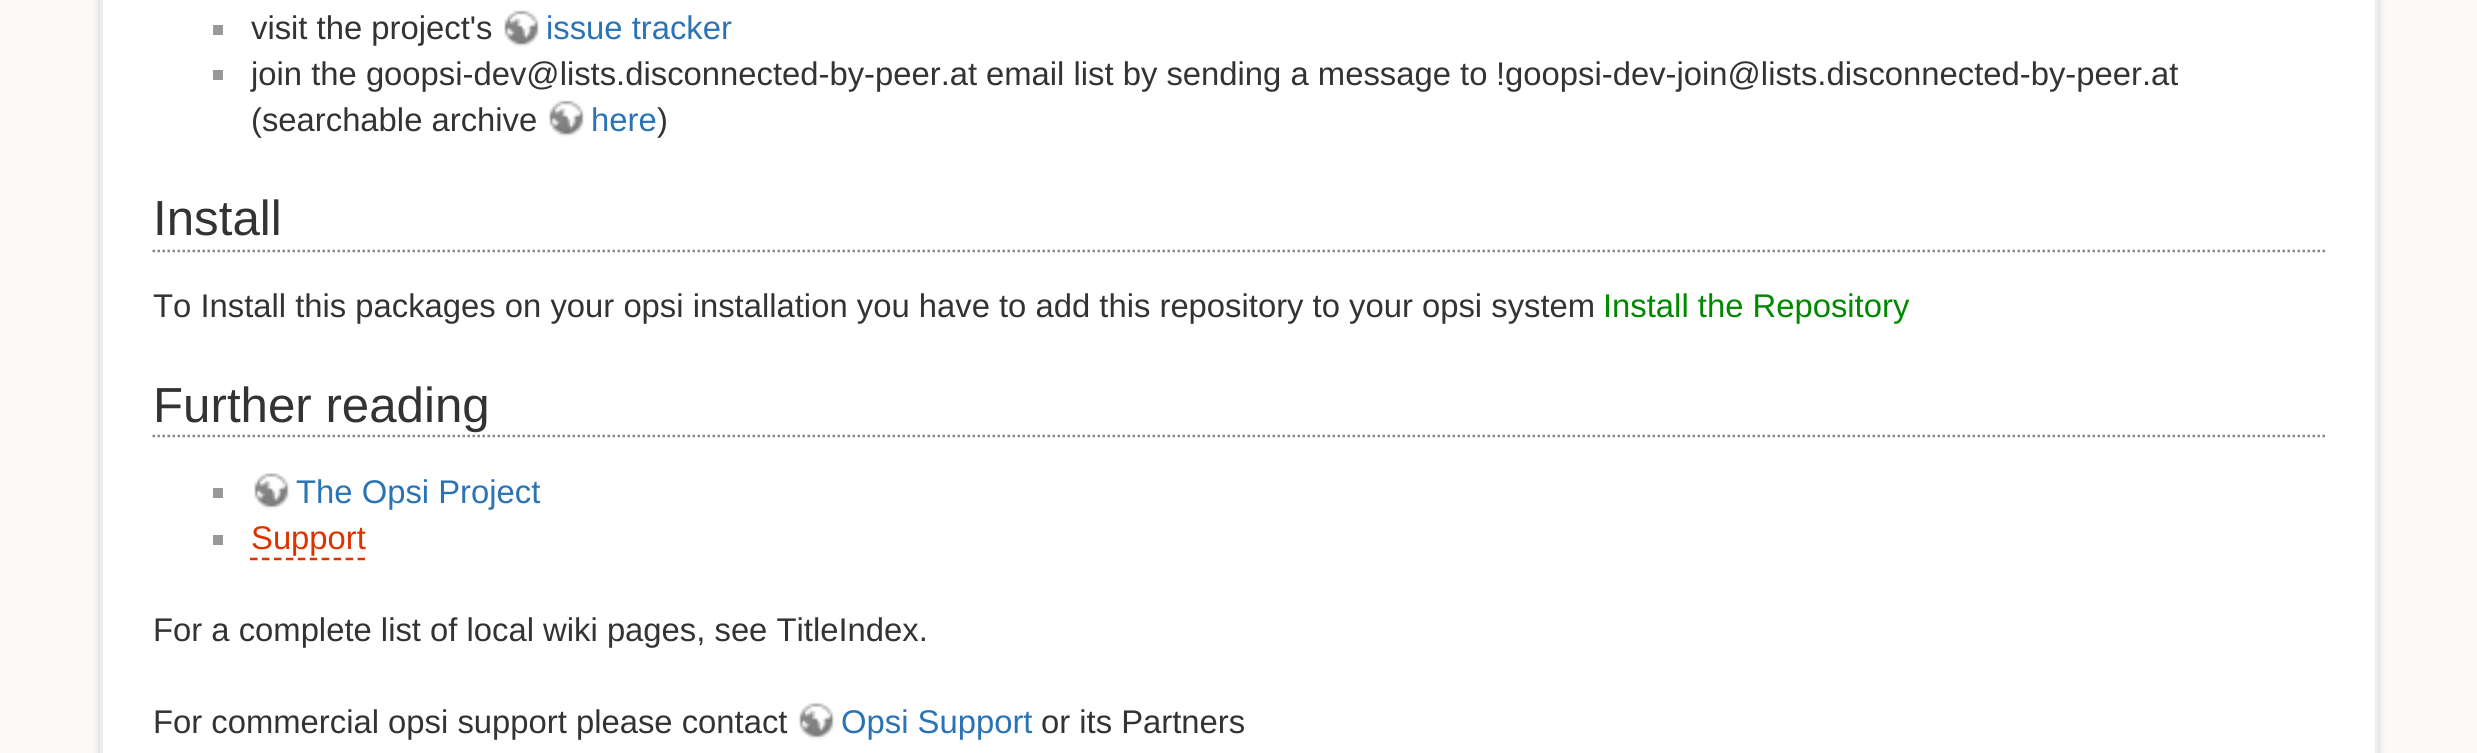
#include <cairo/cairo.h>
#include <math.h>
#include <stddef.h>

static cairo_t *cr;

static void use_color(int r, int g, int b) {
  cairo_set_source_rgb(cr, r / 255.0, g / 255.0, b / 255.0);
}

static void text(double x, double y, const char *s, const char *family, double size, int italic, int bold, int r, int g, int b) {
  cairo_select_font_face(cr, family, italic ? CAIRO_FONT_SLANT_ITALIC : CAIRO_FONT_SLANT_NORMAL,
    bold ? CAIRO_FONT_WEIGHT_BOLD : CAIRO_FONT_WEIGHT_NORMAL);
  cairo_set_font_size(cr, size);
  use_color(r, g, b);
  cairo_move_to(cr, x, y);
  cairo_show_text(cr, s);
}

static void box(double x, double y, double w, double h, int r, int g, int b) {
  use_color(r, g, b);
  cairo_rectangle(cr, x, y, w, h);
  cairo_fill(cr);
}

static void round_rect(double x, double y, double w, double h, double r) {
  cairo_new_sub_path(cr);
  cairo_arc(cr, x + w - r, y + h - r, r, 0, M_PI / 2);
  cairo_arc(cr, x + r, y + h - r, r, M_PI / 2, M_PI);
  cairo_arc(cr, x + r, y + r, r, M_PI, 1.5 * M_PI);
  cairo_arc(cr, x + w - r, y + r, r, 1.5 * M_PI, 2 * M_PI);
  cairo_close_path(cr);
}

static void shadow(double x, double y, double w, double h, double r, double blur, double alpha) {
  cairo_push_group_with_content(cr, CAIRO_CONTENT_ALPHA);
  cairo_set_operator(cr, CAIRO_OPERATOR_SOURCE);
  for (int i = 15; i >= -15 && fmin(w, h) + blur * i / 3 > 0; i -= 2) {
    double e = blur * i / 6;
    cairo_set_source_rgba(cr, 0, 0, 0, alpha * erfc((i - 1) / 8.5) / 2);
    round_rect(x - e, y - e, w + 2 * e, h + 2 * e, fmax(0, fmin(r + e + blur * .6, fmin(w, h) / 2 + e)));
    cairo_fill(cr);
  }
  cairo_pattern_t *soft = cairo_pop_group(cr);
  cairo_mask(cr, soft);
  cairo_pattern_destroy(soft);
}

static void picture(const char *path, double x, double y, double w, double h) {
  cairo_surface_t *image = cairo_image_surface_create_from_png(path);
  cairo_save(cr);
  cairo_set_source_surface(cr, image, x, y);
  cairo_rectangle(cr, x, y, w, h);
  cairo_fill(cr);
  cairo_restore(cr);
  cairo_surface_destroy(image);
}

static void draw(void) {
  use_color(251, 250, 249);
  cairo_paint(cr);
  use_color(0, 0, 0);
  shadow(100, -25, 2278, 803, 13, 4, 0.2);
  use_color(255, 255, 255);
  cairo_rectangle(cr, 101.5, -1.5, 2275, 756);
  cairo_fill_preserve(cr);
  use_color(238, 238, 238);
  cairo_set_line_width(cr, 3);
  cairo_stroke(cr);
  box(213, 25, 10, 10, 153, 153, 153);
  picture("img_01.png", 504, 10, 36, 37);
  box(213, 70, 10, 10, 153, 153, 153);
  picture("img_02.png", 549, 100, 36, 37);
  cairo_new_path(cr);
  cairo_move_to(cr, 152.5, 251);
  cairo_line_to(cr, 2325, 251);
  use_color(136, 136, 136);
  cairo_set_line_width(cr, 2.5);
  cairo_set_dash(cr, (double[]){2.5, 2.5}, 2, 0);
  cairo_stroke(cr);
  cairo_new_path(cr);
  cairo_move_to(cr, 152.5, 436);
  cairo_line_to(cr, 2325, 436);
  cairo_stroke(cr);
  box(213, 488, 10, 10, 153, 153, 153);
  picture("img_03.png", 254, 473, 36, 37);
  box(213, 535, 10, 10, 153, 153, 153);
  cairo_new_path(cr);
  cairo_move_to(cr, 250, 559);
  cairo_line_to(cr, 365, 559);
  use_color(221, 51, 0);
  cairo_set_dash(cr, (double[]){7.5, 4.45}, 2, 0);
  cairo_stroke(cr);
  picture("img_03.png", 799, 703, 36, 37);
  text(251, 39, "visit the project's", "Liberation Sans", 32.8, 0, 0, 51, 51, 51);
  text(546, 39, "issue tracker", "Liberation Sans", 32.8, 0, 0, 43, 115, 183);
  text(251, 85, "join the goopsi-dev@lists.disconnected-by-peer.at", "Liberation Sans", 32.8, 0, 0, 51, 51, 51);
  text(986, 85, "email list by sending a message to", "Liberation Sans", 32.8, 0, 0, 51, 51, 51);
  text(1496, 85, "!goopsi-dev-join@lists.disconnected-by-peer.at", "Liberation Sans", 32.8, 0, 0, 51, 51, 51);
  text(251, 131, "(searchable archive", "Liberation Sans", 32.8, 0, 0, 51, 51, 51);
  text(591, 131, "here", "Liberation Sans", 32.8, 0, 0, 43, 115, 183);
  text(657, 131, ")", "Liberation Sans", 32.8, 0, 0, 51, 51, 51);
  text(153, 235, "Install", "Liberation Sans", 49.25, 0, 0, 51, 51, 51);
  text(153, 317, "To Install this packages on your opsi installation you have to add this repository to your opsi system", "Liberation Sans", 32.8, 0, 0, 51, 51, 51);
  text(1603, 317, "Install the Repository", "Liberation Sans", 32.8, 0, 0, 0, 136, 0);
  text(153, 422, "Further reading", "Liberation Sans", 49.25, 0, 0, 51, 51, 51);
  text(296, 503, "The Opsi Project", "Liberation Sans", 32.8, 0, 0, 43, 115, 183);
  text(251, 549, "Support", "Liberation Sans", 32.8, 0, 0, 221, 51, 0);
  text(153, 641, "For a complete list of local wiki pages, see TitleIndex.", "Liberation Sans", 32.8, 0, 0, 51, 51, 51);
  text(153, 733, "For commercial opsi support please contact", "Liberation Sans", 32.8, 0, 0, 51, 51, 51);
  text(841, 733, "Opsi Support", "Liberation Sans", 32.8, 0, 0, 43, 115, 183);
  text(1041, 733, "or its Partners", "Liberation Sans", 32.8, 0, 0, 51, 51, 51);
}

int main(void) {
  cairo_surface_t *surface = cairo_image_surface_create(CAIRO_FORMAT_RGB24, 2477, 753);
  cr = cairo_create(surface);
  cairo_font_options_t *options = cairo_font_options_create();
  cairo_font_options_set_hint_metrics(options, CAIRO_HINT_METRICS_OFF);
  cairo_font_options_set_hint_style(options, CAIRO_HINT_STYLE_NONE);
  cairo_set_font_options(cr, options);
  cairo_set_miter_limit(cr, 4);
  draw();
  cairo_surface_write_to_png(surface, "out.png");
  cairo_font_options_destroy(options);
  cairo_destroy(cr);
  cairo_surface_destroy(surface);
  return 0;
}
